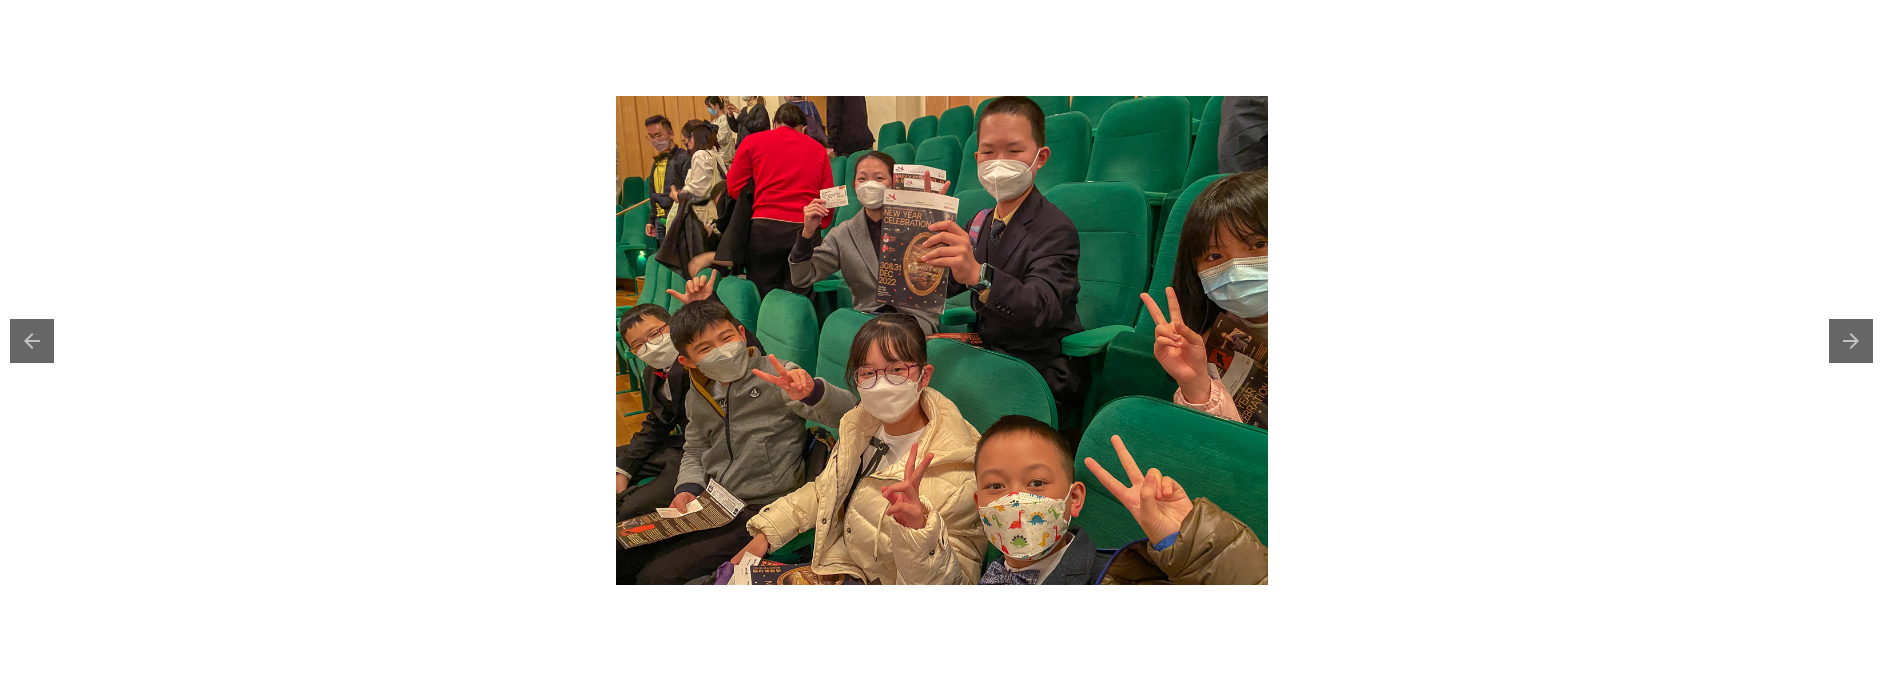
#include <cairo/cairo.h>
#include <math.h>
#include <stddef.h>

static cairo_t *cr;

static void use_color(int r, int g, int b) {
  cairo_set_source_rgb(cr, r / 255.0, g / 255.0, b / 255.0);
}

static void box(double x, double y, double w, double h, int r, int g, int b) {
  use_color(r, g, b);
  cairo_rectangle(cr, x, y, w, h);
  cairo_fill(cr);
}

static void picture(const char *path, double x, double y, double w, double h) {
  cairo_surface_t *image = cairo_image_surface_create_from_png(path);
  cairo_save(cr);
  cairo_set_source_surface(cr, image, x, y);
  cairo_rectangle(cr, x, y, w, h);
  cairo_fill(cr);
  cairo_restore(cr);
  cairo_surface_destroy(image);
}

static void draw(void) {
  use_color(255, 255, 255);
  cairo_paint(cr);
  picture("img_01.png", 616, 96, 652, 489);
  box(10, 319, 44, 44, 102, 102, 102);
  picture("img_02.png", 24, 333, 16, 16);
  box(1829, 319, 44, 44, 102, 102, 102);
  picture("img_03.png", 1843, 333, 16, 16);
}

int main(void) {
  cairo_surface_t *surface = cairo_image_surface_create(CAIRO_FORMAT_RGB24, 1883, 681);
  cr = cairo_create(surface);
  cairo_font_options_t *options = cairo_font_options_create();
  cairo_font_options_set_hint_metrics(options, CAIRO_HINT_METRICS_OFF);
  cairo_font_options_set_hint_style(options, CAIRO_HINT_STYLE_NONE);
  cairo_set_font_options(cr, options);
  cairo_set_miter_limit(cr, 4);
  draw();
  cairo_surface_write_to_png(surface, "out.png");
  cairo_font_options_destroy(options);
  cairo_destroy(cr);
  cairo_surface_destroy(surface);
  return 0;
}
